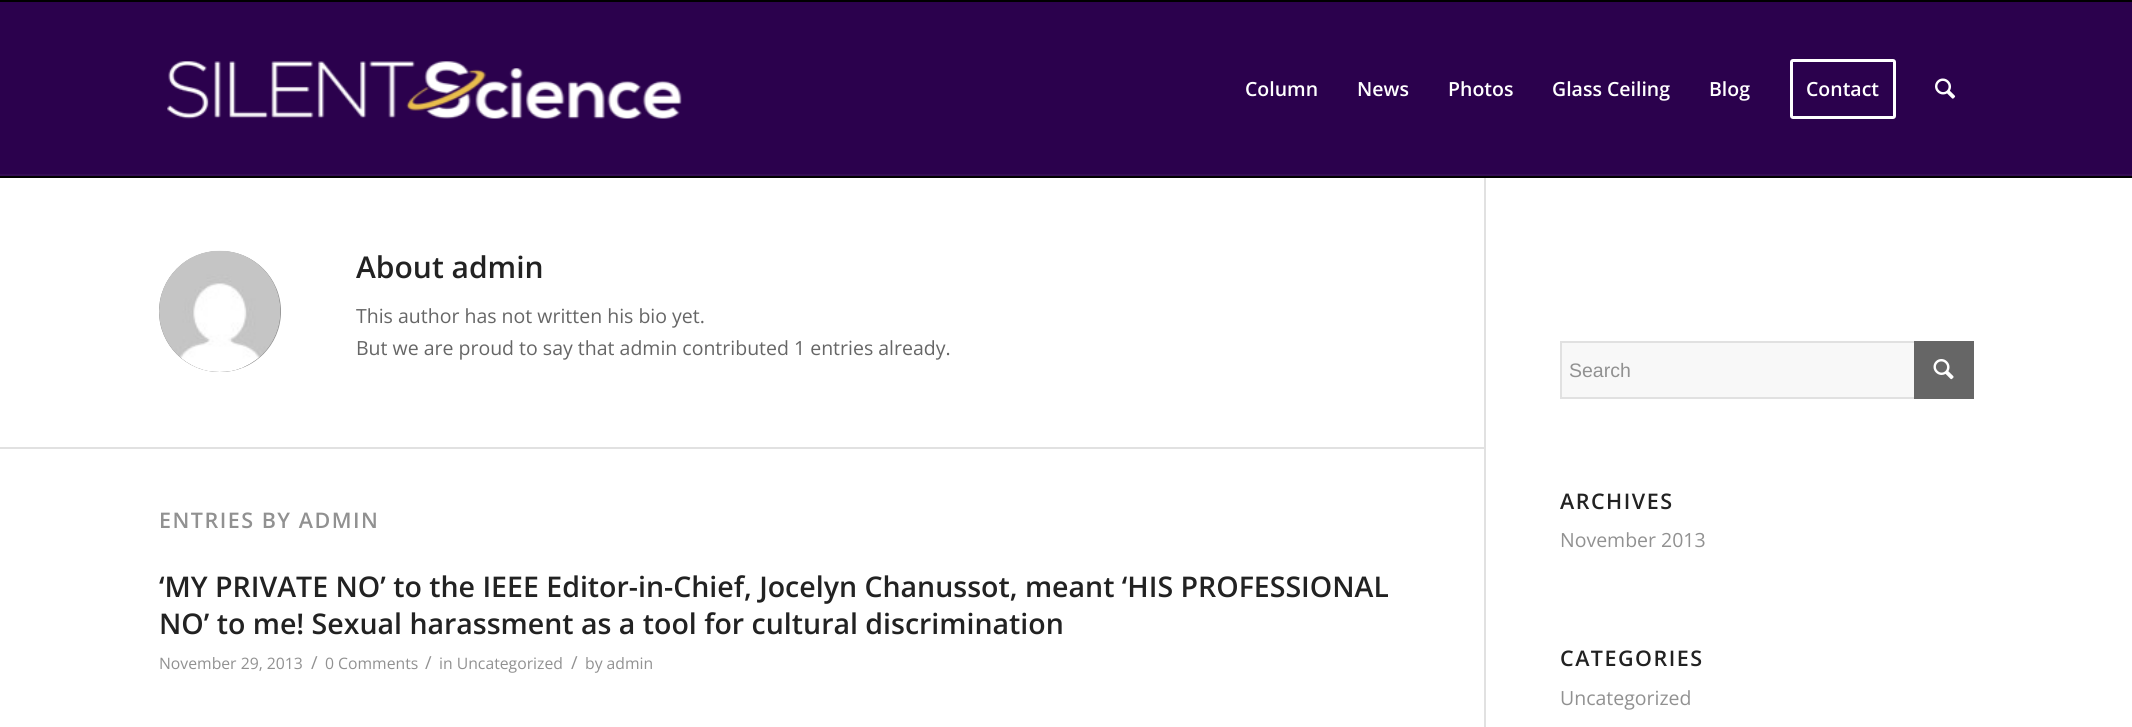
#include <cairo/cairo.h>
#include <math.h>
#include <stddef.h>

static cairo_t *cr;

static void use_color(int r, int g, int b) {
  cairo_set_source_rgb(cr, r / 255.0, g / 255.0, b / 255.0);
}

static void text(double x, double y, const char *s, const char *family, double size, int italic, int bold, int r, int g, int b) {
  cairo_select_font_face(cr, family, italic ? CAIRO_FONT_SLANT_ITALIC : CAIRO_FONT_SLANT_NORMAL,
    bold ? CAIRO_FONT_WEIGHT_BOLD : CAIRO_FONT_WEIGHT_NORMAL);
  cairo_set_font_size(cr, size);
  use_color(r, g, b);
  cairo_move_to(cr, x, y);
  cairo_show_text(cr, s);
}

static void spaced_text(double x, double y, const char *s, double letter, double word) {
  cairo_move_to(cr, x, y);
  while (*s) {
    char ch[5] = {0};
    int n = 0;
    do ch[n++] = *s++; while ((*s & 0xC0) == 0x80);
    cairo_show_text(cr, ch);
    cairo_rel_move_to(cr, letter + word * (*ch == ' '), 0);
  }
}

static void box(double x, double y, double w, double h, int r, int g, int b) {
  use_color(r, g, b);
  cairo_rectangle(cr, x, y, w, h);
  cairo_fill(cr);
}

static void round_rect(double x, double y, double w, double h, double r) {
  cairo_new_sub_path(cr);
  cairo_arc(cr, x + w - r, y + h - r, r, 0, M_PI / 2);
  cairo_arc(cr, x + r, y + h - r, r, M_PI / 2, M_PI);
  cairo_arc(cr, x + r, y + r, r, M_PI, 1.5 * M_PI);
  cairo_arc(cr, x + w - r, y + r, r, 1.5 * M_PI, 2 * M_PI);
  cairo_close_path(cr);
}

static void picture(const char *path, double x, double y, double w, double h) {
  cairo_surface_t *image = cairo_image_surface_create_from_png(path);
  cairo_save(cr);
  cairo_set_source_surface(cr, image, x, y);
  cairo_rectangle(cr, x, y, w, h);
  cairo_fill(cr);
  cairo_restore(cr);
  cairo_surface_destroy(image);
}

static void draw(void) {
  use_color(43, 1, 77);
  cairo_paint(cr);
  box(0, 0, 2132, 2, 0, 0, 0);
  box(0, 178, 2132, 549, 255, 255, 255);
  box(1484, 176, 2, 551, 225, 225, 225);
  box(0, 176, 2132, 2, 0, 0, 0);
  picture("img_01.png", 167, 61, 515, 58);
  round_rect(1791.5, 60.5, 103, 57, 1.5);
  use_color(255, 255, 255);
  cairo_set_line_width(cr, 3);
  cairo_stroke(cr);
  picture("img_02.png", 1935, 78, 21, 21);
  box(0, 174, 2132, 2, 52, 12, 84);
  use_color(145, 145, 145);
  round_rect(159, 251, 122, 121, 60.5);
  cairo_fill(cr);
  picture("img_03.png", 159, 250, 122, 122);
  box(0, 447, 1484, 2, 225, 225, 225);
  box(1562, 343, 352, 54, 248, 248, 248);
  cairo_rectangle(cr, 1561, 342, 412, 56);
  use_color(225, 225, 225);
  cairo_set_line_width(cr, 2);
  cairo_stroke(cr);
  box(1914, 341, 60, 58, 102, 102, 102);
  picture("img_04.png", 1933, 359, 21, 21);
  text(1245, 96, "Column", "Open Sans SemiBold", 19.5, 0, 0, 255, 255, 255);
  text(1357, 96, "News", "Open Sans SemiBold", 19.5, 0, 0, 255, 255, 255);
  text(1448, 96, "Photos", "Open Sans SemiBold", 19.5, 0, 0, 255, 255, 255);
  text(1552, 96, "Glass Ceiling", "Open Sans SemiBold", 19.5, 0, 0, 255, 255, 255);
  text(1709, 96, "Blog", "Open Sans SemiBold", 19.5, 0, 0, 255, 255, 255);
  text(1806, 96, "Contact", "Open Sans SemiBold", 19.5, 0, 0, 255, 255, 255);
  text(356, 278, "About admin", "Open Sans SemiBold", 30, 0, 0, 34, 34, 34);
  text(356, 323, "This author has not written his bio yet.", "Open Sans", 19.5, 0, 0, 102, 102, 102);
  text(356, 355, "But we are proud to say that admin contributed 1 entries already.", "Open Sans", 19.5, 0, 0, 102, 102, 102);
  cairo_select_font_face(cr, "Open Sans SemiBold", CAIRO_FONT_SLANT_NORMAL, CAIRO_FONT_WEIGHT_NORMAL);
  cairo_set_font_size(cr, 21.5);
  use_color(145, 145, 145);
  spaced_text(159, 528, "ENTRIES BY ADMIN", 1.5, 0);
  text(159, 597, "‘MY PRIVATE NO’ to the IEEE Editor-in-Chief, Jocelyn Chanussot, meant ‘HIS PROFESSIONAL", "Open Sans SemiBold", 28.5, 0, 0, 34, 34, 34);
  text(159, 634, "NO’ to me! Sexual harassment as a tool for cultural discrimination", "Open Sans SemiBold", 28.5, 0, 0, 34, 34, 34);
  text(159, 669, "November 29, 2013", "Open Sans", 15.75, 0, 0, 145, 145, 145);
  text(311, 669, "/", "Open Sans", 18, 0, 0, 145, 145, 145);
  text(325, 669, "0 Comments", "Open Sans", 15.75, 0, 0, 145, 145, 145);
  text(425, 669, "/", "Open Sans", 18, 0, 0, 145, 145, 145);
  text(439, 669, "in Uncategorized", "Open Sans", 15.75, 0, 0, 145, 145, 145);
  text(571, 669, "/", "Open Sans", 18, 0, 0, 145, 145, 145);
  text(585, 669, "by admin", "Open Sans", 15.75, 0, 0, 145, 145, 145);
  text(1569, 377, "Search", "Liberation Sans", 19.5, 0, 0, 145, 145, 145);
  cairo_select_font_face(cr, "Open Sans SemiBold", CAIRO_FONT_SLANT_NORMAL, CAIRO_FONT_WEIGHT_NORMAL);
  cairo_set_font_size(cr, 21.5);
  use_color(34, 34, 34);
  spaced_text(1560, 509, "ARCHIVES", 1.5, 0);
  text(1560, 547, "November 2013", "Open Sans", 19.5, 0, 0, 145, 145, 145);
  cairo_select_font_face(cr, "Open Sans SemiBold", CAIRO_FONT_SLANT_NORMAL, CAIRO_FONT_WEIGHT_NORMAL);
  cairo_set_font_size(cr, 21.5);
  use_color(34, 34, 34);
  spaced_text(1560, 666, "CATEGORIES", 1.5, 0);
  text(1560, 705, "Uncategorized", "Open Sans", 19.5, 0, 0, 145, 145, 145);
}

int main(void) {
  cairo_surface_t *surface = cairo_image_surface_create(CAIRO_FORMAT_RGB24, 2132, 727);
  cr = cairo_create(surface);
  cairo_font_options_t *options = cairo_font_options_create();
  cairo_font_options_set_hint_metrics(options, CAIRO_HINT_METRICS_OFF);
  cairo_font_options_set_hint_style(options, CAIRO_HINT_STYLE_NONE);
  cairo_set_font_options(cr, options);
  cairo_set_miter_limit(cr, 4);
  draw();
  cairo_surface_write_to_png(surface, "out.png");
  cairo_font_options_destroy(options);
  cairo_destroy(cr);
  cairo_surface_destroy(surface);
  return 0;
}
